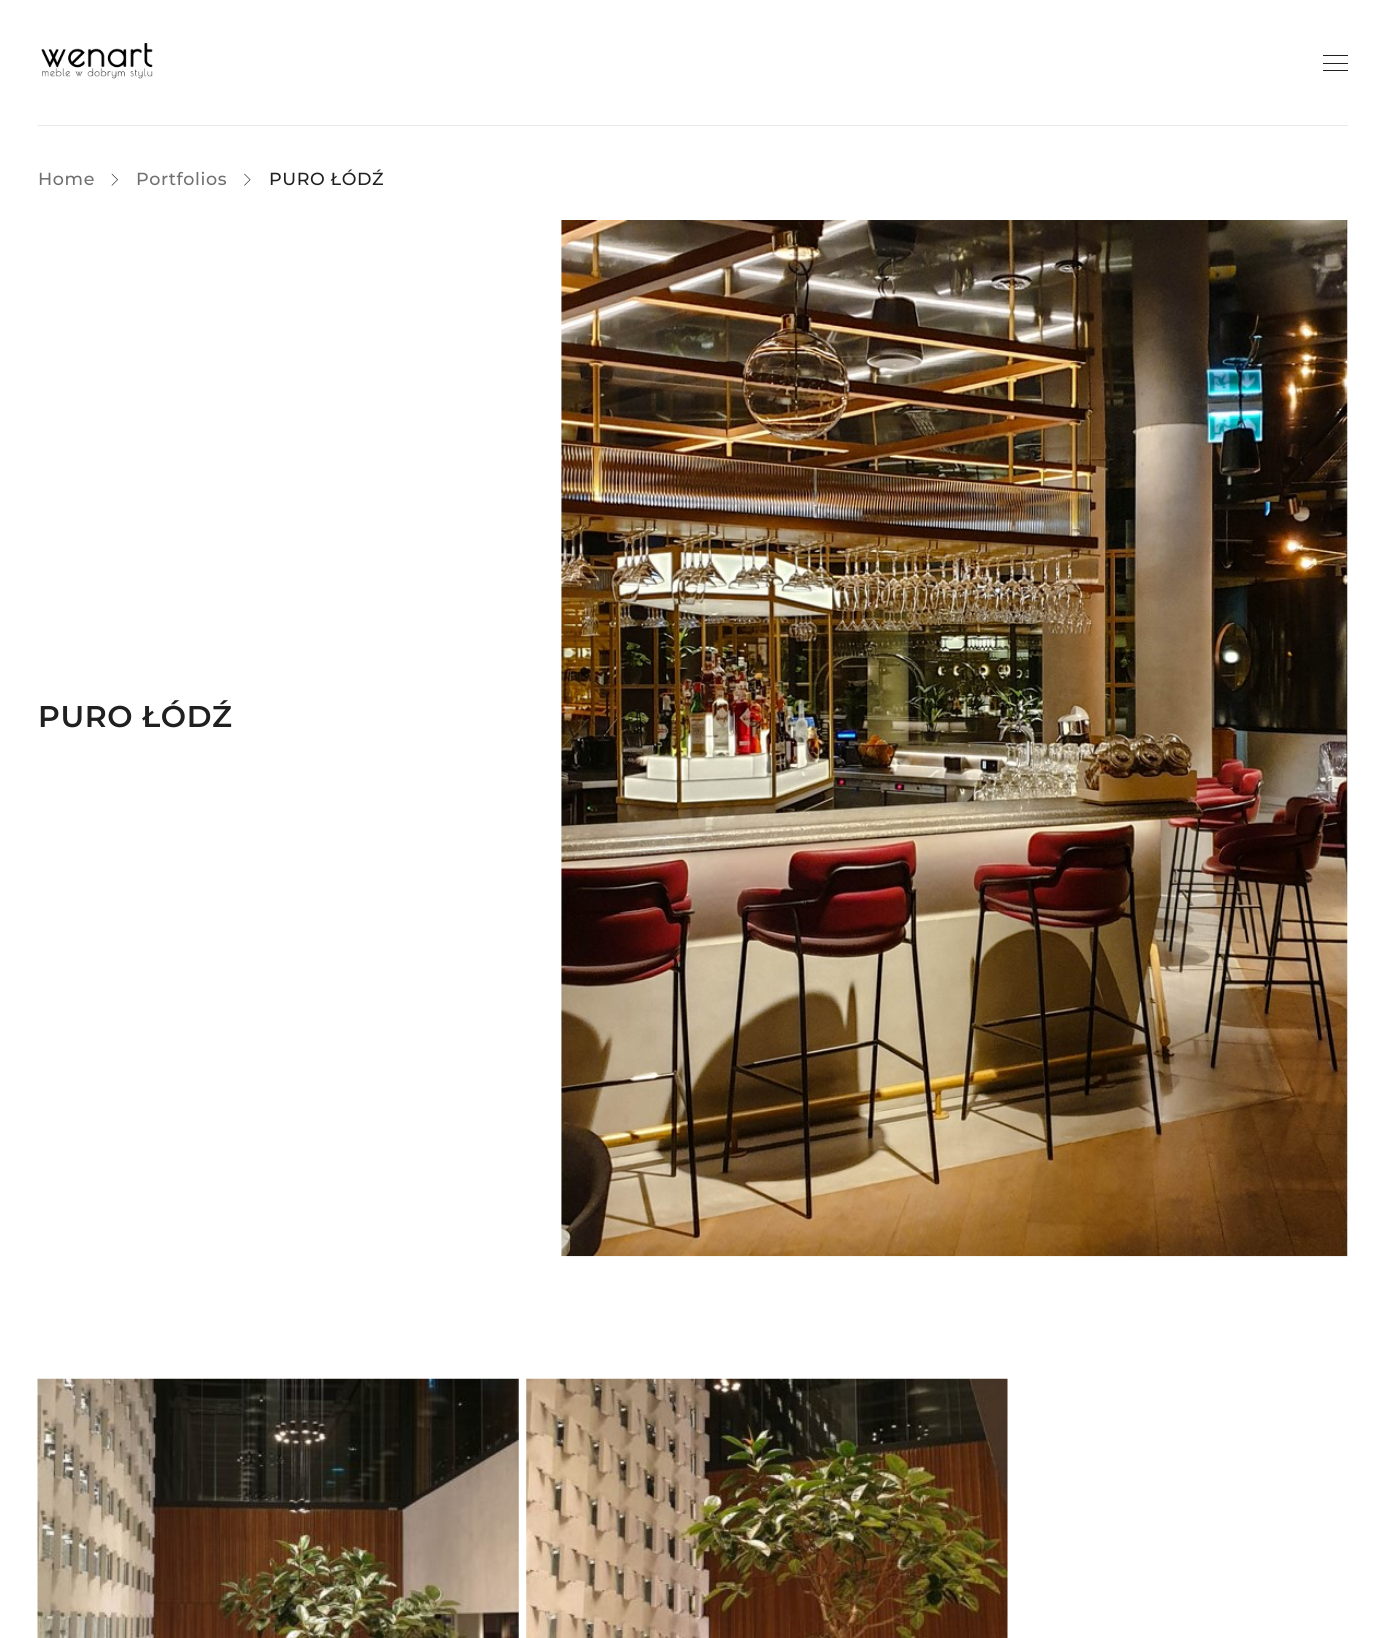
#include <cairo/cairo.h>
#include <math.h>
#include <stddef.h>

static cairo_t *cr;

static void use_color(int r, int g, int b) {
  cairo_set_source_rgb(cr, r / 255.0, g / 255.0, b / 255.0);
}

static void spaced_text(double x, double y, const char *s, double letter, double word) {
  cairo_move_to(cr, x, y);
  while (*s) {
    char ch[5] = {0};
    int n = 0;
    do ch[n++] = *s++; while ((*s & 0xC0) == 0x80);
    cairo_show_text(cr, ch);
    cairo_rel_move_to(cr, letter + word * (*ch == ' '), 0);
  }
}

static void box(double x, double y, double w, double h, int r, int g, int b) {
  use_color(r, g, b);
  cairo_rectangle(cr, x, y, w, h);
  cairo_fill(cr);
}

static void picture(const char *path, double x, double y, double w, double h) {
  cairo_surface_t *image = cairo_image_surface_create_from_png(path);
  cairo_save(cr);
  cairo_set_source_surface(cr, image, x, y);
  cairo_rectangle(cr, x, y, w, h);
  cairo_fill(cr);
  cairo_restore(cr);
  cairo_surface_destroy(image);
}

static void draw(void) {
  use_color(255, 255, 255);
  cairo_paint(cr);
  picture("img_01.png", 41, 43, 112, 36);
  box(1323, 55, 25, 1, 32, 32, 32);
  box(1323, 63, 25, 1, 32, 32, 32);
  box(1323, 70, 25, 1, 32, 32, 32);
  box(38, 125, 1310, 1, 233, 233, 233);
  picture("img_02.png", 111, 173, 7, 13);
  picture("img_03.png", 244, 173, 7, 13);
  picture("img_04.png", 561, 220, 787, 1037);
  picture("img_05.png", 37, 1378, 482, 260);
  picture("img_06.png", 526, 1378, 482, 260);
  cairo_select_font_face(cr, "Montserrat Medium", CAIRO_FONT_SLANT_NORMAL, CAIRO_FONT_WEIGHT_NORMAL);
  cairo_set_font_size(cr, 17.5);
  use_color(112, 112, 112);
  spaced_text(38, 185, "Home", 0.6, 0);
  spaced_text(136, 185, "Portfolios", 0.6, 0);
  use_color(32, 32, 32);
  spaced_text(269, 185, "PURO ŁÓDŹ", 0.6, 0);
  cairo_select_font_face(cr, "Montserrat SemiBold", CAIRO_FONT_SLANT_NORMAL, CAIRO_FONT_WEIGHT_NORMAL);
  cairo_set_font_size(cr, 30);
  spaced_text(38, 727, "PURO ŁÓDŹ", 0.6, 0);
}

int main(void) {
  cairo_surface_t *surface = cairo_image_surface_create(CAIRO_FORMAT_RGB24, 1384, 1638);
  cr = cairo_create(surface);
  cairo_font_options_t *options = cairo_font_options_create();
  cairo_font_options_set_hint_metrics(options, CAIRO_HINT_METRICS_OFF);
  cairo_font_options_set_hint_style(options, CAIRO_HINT_STYLE_NONE);
  cairo_set_font_options(cr, options);
  cairo_set_miter_limit(cr, 4);
  draw();
  cairo_surface_write_to_png(surface, "out.png");
  cairo_font_options_destroy(options);
  cairo_destroy(cr);
  cairo_surface_destroy(surface);
  return 0;
}
